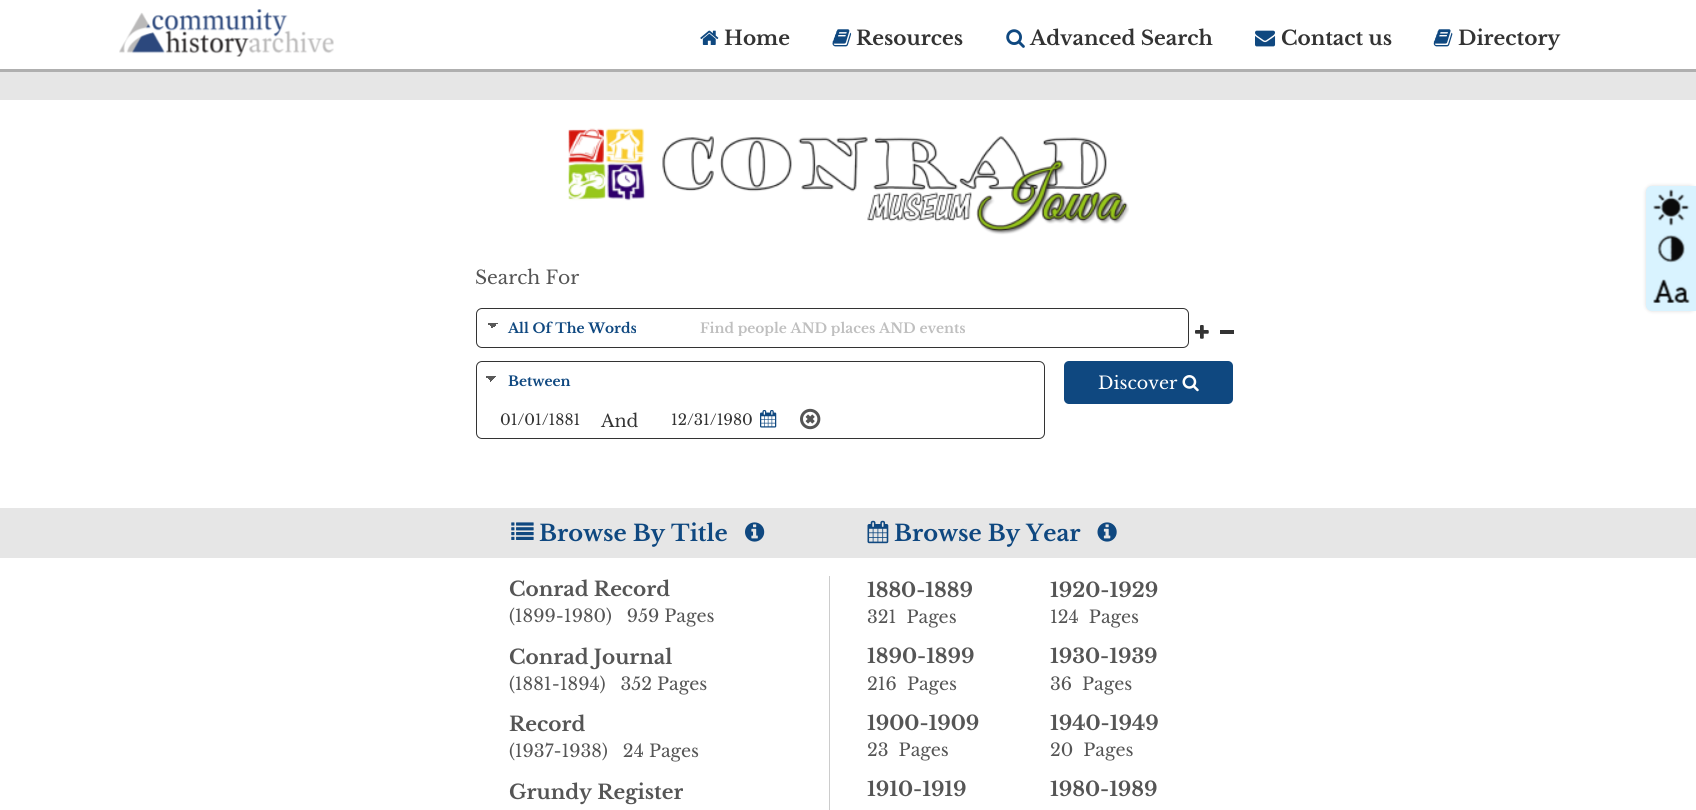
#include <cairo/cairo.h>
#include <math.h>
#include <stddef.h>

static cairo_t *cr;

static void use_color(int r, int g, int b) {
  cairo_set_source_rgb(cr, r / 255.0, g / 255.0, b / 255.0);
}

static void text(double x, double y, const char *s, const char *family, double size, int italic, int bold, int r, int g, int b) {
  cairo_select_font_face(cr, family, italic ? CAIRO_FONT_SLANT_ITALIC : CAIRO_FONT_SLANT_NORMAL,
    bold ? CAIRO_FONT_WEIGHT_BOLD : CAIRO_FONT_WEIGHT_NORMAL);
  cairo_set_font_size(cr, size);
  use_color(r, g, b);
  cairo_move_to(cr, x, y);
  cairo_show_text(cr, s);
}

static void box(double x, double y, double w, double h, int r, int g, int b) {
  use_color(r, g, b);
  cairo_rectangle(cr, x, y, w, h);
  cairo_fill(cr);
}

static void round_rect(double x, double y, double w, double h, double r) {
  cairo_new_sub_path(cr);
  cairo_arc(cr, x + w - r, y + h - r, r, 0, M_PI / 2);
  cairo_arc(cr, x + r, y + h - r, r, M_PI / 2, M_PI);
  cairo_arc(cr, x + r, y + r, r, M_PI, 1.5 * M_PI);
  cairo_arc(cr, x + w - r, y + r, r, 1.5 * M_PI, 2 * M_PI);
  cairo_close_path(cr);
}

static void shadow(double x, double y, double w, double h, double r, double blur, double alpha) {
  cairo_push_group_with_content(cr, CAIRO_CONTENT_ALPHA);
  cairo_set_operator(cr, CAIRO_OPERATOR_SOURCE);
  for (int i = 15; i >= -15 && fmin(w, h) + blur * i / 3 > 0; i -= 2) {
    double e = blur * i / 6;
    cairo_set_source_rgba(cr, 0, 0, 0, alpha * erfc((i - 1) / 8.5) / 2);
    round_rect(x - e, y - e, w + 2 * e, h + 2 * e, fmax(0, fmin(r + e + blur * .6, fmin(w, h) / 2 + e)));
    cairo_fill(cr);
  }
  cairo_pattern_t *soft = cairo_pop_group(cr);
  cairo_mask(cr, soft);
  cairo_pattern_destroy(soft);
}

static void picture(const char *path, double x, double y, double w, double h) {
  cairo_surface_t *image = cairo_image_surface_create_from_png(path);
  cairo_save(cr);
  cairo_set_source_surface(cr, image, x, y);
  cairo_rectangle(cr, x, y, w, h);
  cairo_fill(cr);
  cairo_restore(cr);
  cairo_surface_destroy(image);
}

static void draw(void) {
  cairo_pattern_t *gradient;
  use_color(230, 230, 230);
  cairo_paint(cr);
  box(0, 0, 1696, 69, 255, 255, 255);
  box(0, 69, 1696, 3, 175, 175, 175);
  picture("img_01.png", 119, 9, 215, 48);
  picture("img_02.png", 700, 30, 19, 15);
  picture("img_03.png", 832, 29, 20, 18);
  picture("img_04.png", 1006, 29, 19, 19);
  picture("img_05.png", 1255, 30, 21, 17);
  picture("img_06.png", 1433, 29, 20, 18);
  box(0, 100, 1696, 408, 255, 255, 255);
  picture("img_07.png", 568, 128, 561, 107);
  round_rect(476.5, 308.5, 712, 39, 5.5);
  use_color(51, 51, 51);
  cairo_set_line_width(cr, 1);
  cairo_stroke(cr);
  gradient = cairo_pattern_create_linear(492, 323, 498, 329);
  cairo_pattern_add_color_stop_rgba(gradient, 0.5, 0.349, 0.349, 0.349, 1);
  cairo_pattern_add_color_stop_rgba(gradient, 0.5, 1, 1, 1, 1);
  cairo_set_source(cr, gradient);
  cairo_pattern_destroy(gradient);
  cairo_rectangle(cr, 493, 323, 6, 4);
  cairo_fill(cr);
  gradient = cairo_pattern_create_linear(487, 329, 493, 323);
  cairo_pattern_add_color_stop_rgba(gradient, 0.5, 1, 1, 1, 1);
  cairo_pattern_add_color_stop_rgba(gradient, 0.5, 0.349, 0.349, 0.349, 1);
  cairo_set_source(cr, gradient);
  cairo_pattern_destroy(gradient);
  cairo_rectangle(cr, 488, 323, 5, 6);
  cairo_fill(cr);
  picture("img_08.png", 1195, 325, 14, 14);
  box(1220, 330, 14, 4, 51, 51, 51);
  round_rect(476.5, 361.5, 568, 77, 5.5);
  cairo_stroke(cr);
  gradient = cairo_pattern_create_linear(490, 376, 496, 383);
  cairo_pattern_add_color_stop_rgba(gradient, 0.5, 0.349, 0.349, 0.349, 1);
  cairo_pattern_add_color_stop_rgba(gradient, 0.5, 1, 1, 1, 1);
  cairo_set_source(cr, gradient);
  cairo_pattern_destroy(gradient);
  cairo_rectangle(cr, 490, 376, 6, 7);
  cairo_fill(cr);
  gradient = cairo_pattern_create_linear(486, 382, 491, 377);
  cairo_pattern_add_color_stop_rgba(gradient, 0.5, 0.349, 0.349, 0.349, 0);
  cairo_pattern_add_color_stop_rgba(gradient, 0.5, 0.349, 0.349, 0.349, 1);
  cairo_set_source(cr, gradient);
  cairo_pattern_destroy(gradient);
  cairo_rectangle(cr, 486, 376, 4, 7);
  cairo_fill(cr);
  picture("img_09.png", 760, 410, 17, 18);
  picture("img_10.png", 800, 408, 21, 22);
  use_color(15, 72, 128);
  round_rect(1064, 361, 169, 43, 5);
  cairo_fill(cr);
  picture("img_11.png", 1182, 375, 17, 17);
  picture("img_12.png", 511, 522, 23, 18);
  picture("img_13.png", 745, 522, 20, 20);
  picture("img_14.png", 867, 520, 22, 24);
  picture("img_15.png", 1097, 522, 20, 20);
  box(0, 558, 1696, 252, 255, 255, 255);
  box(829, 576, 1, 234, 204, 204, 204);
  use_color(0, 0, 0);
  shadow(1646, 186, 50, 125, 6, 2, 0.15);
  use_color(217, 243, 255);
  cairo_new_path(cr);
  cairo_move_to(cr, 1652, 186);
  cairo_line_to(cr, 1696, 186);
  cairo_line_to(cr, 1696, 311);
  cairo_line_to(cr, 1652, 311);
  cairo_curve_to(cr, 1648.5, 311, 1646, 308.5, 1646, 305);
  cairo_line_to(cr, 1646, 192);
  cairo_curve_to(cr, 1646, 188.5, 1648.5, 186, 1652, 186);
  cairo_close_path(cr);
  cairo_fill(cr);
  picture("img_16.png", 1653, 189, 37, 37);
  picture("img_17.png", 1657, 235, 28, 28);
  picture("img_18.png", 1653, 279, 37, 24);
  text(724, 45, "Home", "Libre Baskerville", 20, 0, 1, 51, 51, 51);
  text(856, 45, "Resources", "Libre Baskerville", 20, 0, 1, 51, 51, 51);
  text(1030, 45, "Advanced Search", "Libre Baskerville", 20, 0, 1, 51, 51, 51);
  text(1281, 45, "Contact us", "Libre Baskerville", 20, 0, 1, 51, 51, 51);
  text(1458, 45, "Directory", "Libre Baskerville", 20, 0, 1, 51, 51, 51);
  text(475, 284, "Search For", "Libre Baskerville", 18.75, 0, 0, 85, 85, 85);
  text(508, 333, "All Of The Words", "Libre Baskerville", 13.75, 0, 1, 15, 72, 128);
  cairo_save(cr);
  cairo_rectangle(cr, 700, 319, 384, 17);
  cairo_clip(cr);
  text(700, 333, "Find people AND places AND events", "Libre Baskerville", 13.75, 0, 1, 191, 191, 191);
  cairo_restore(cr);
  text(508, 386, "Between", "Libre Baskerville", 13.75, 0, 1, 15, 72, 128);
  text(500, 425, "01/01/1881", "Libre Baskerville", 15, 0, 0, 51, 51, 51);
  text(601, 427, "And", "Libre Baskerville", 17.5, 0, 0, 51, 51, 51);
  text(671, 425, "12/31/1980", "Libre Baskerville", 15, 0, 0, 51, 51, 51);
  text(1098, 389, "Discover", "Libre Baskerville", 17.5, 0, 0, 255, 255, 255);
  text(539, 541, "Browse By Title", "Libre Baskerville", 22.5, 0, 1, 15, 72, 128);
  text(894, 541, "Browse By Year", "Libre Baskerville", 22.5, 0, 1, 15, 72, 128);
  text(509, 596, "Conrad Record", "Libre Baskerville", 20, 0, 1, 85, 85, 85);
  text(509, 622, "(1899-1980)   959 Pages", "Libre Baskerville", 17.5, 0, 0, 85, 85, 85);
  text(509, 664, "Conrad Journal", "Libre Baskerville", 20, 0, 1, 85, 85, 85);
  text(509, 690, "(1881-1894)   352 Pages", "Libre Baskerville", 17.5, 0, 0, 85, 85, 85);
  text(509, 731, "Record", "Libre Baskerville", 20, 0, 1, 85, 85, 85);
  text(509, 757, "(1937-1938)   24 Pages", "Libre Baskerville", 17.5, 0, 0, 85, 85, 85);
  text(509, 799, "Grundy Register", "Libre Baskerville", 20, 0, 1, 85, 85, 85);
  text(867, 597, "1880-1889", "Libre Baskerville", 20, 0, 1, 85, 85, 85);
  text(867, 623, "321  Pages", "Libre Baskerville", 17.5, 0, 0, 85, 85, 85);
  text(867, 663, "1890-1899", "Libre Baskerville", 20, 0, 1, 85, 85, 85);
  text(867, 690, "216  Pages", "Libre Baskerville", 17.5, 0, 0, 85, 85, 85);
  text(867, 730, "1900-1909", "Libre Baskerville", 20, 0, 1, 85, 85, 85);
  text(867, 756, "23  Pages", "Libre Baskerville", 17.5, 0, 0, 85, 85, 85);
  text(867, 796, "1910-1919", "Libre Baskerville", 20, 0, 1, 85, 85, 85);
  text(1050, 597, "1920-1929", "Libre Baskerville", 20, 0, 1, 85, 85, 85);
  text(1050, 623, "124  Pages", "Libre Baskerville", 17.5, 0, 0, 85, 85, 85);
  text(1050, 663, "1930-1939", "Libre Baskerville", 20, 0, 1, 85, 85, 85);
  text(1050, 690, "36  Pages", "Libre Baskerville", 17.5, 0, 0, 85, 85, 85);
  text(1050, 730, "1940-1949", "Libre Baskerville", 20, 0, 1, 85, 85, 85);
  text(1050, 756, "20  Pages", "Libre Baskerville", 17.5, 0, 0, 85, 85, 85);
  text(1050, 796, "1980-1989", "Libre Baskerville", 20, 0, 1, 85, 85, 85);
}

int main(void) {
  cairo_surface_t *surface = cairo_image_surface_create(CAIRO_FORMAT_RGB24, 1696, 810);
  cr = cairo_create(surface);
  cairo_font_options_t *options = cairo_font_options_create();
  cairo_font_options_set_hint_metrics(options, CAIRO_HINT_METRICS_OFF);
  cairo_font_options_set_hint_style(options, CAIRO_HINT_STYLE_NONE);
  cairo_set_font_options(cr, options);
  cairo_set_miter_limit(cr, 4);
  draw();
  cairo_surface_write_to_png(surface, "out.png");
  cairo_font_options_destroy(options);
  cairo_destroy(cr);
  cairo_surface_destroy(surface);
  return 0;
}
